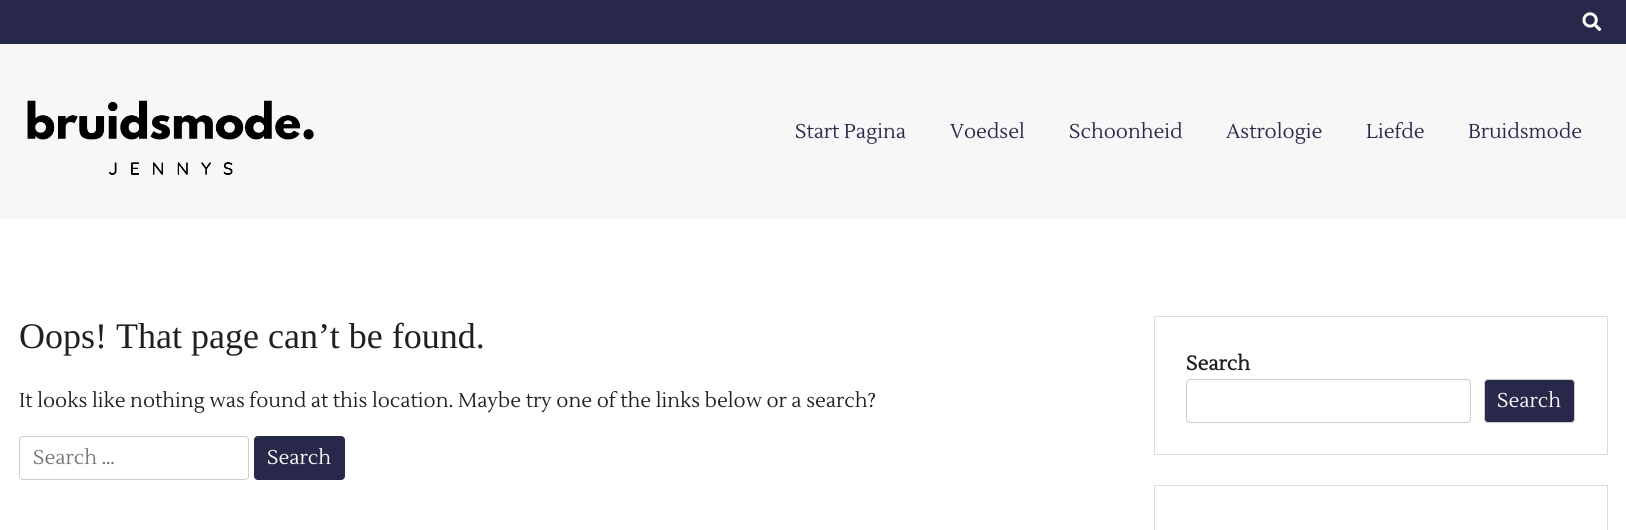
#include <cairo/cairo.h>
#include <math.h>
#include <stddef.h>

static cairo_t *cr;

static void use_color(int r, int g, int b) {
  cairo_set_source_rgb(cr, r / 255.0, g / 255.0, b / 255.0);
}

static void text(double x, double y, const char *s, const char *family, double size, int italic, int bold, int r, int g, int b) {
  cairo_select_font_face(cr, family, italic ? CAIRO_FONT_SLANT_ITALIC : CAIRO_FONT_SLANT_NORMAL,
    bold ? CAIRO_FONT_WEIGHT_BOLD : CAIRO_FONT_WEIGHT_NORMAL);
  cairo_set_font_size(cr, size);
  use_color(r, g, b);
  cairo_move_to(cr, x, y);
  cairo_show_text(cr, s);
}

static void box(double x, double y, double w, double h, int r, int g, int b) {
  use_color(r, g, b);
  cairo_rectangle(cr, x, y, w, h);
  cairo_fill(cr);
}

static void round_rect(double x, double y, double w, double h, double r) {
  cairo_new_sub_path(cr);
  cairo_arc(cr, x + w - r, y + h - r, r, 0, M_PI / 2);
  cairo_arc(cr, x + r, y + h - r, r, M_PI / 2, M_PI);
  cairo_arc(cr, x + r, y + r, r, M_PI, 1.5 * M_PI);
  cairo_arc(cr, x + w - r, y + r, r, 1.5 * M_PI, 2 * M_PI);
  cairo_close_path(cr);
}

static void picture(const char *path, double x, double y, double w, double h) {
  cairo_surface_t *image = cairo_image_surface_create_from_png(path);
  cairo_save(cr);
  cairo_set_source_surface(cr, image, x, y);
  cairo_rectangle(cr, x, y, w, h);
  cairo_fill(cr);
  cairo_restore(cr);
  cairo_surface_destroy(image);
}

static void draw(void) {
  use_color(255, 255, 255);
  cairo_paint(cr);
  box(0, 0, 1626, 44, 40, 40, 74);
  picture("img_01.png", 1582, 12, 20, 19);
  box(0, 44, 1626, 175, 247, 247, 247);
  picture("img_02.png", 27, 100, 287, 75);
  round_rect(19.5, 436.5, 229, 43, 3.5);
  use_color(204, 204, 204);
  cairo_set_line_width(cr, 1);
  cairo_stroke(cr);
  use_color(40, 40, 74);
  round_rect(254.5, 436.5, 90, 43, 3.5);
  cairo_fill_preserve(cr);
  cairo_stroke(cr);
  cairo_rectangle(cr, 1154.5, 316.5, 453, 138);
  use_color(221, 221, 221);
  cairo_stroke(cr);
  round_rect(1186.5, 379.5, 284, 43, 3.5);
  use_color(204, 204, 204);
  cairo_stroke(cr);
  use_color(40, 40, 74);
  round_rect(1484.5, 379.5, 90, 43, 3.5);
  cairo_fill_preserve(cr);
  use_color(204, 204, 204);
  cairo_stroke(cr);
  cairo_rectangle(cr, 1154.5, 485.5, 453, 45);
  use_color(221, 221, 221);
  cairo_stroke(cr);
  text(795, 138, "Start Pagina", "Lustria", 20, 0, 0, 40, 40, 74);
  text(950, 138, "Voedsel", "Lustria", 20, 0, 0, 40, 40, 74);
  text(1069, 138, "Schoonheid", "Lustria", 20, 0, 0, 40, 40, 74);
  text(1226, 138, "Astrologie", "Lustria", 20, 0, 0, 40, 40, 74);
  text(1366, 138, "Liefde", "Lustria", 20, 0, 0, 40, 40, 74);
  text(1468, 138, "Bruidsmode", "Lustria", 20, 0, 0, 40, 40, 74);
  text(19, 348, "Oops! That page can’t be found.", "Liberation Serif", 36, 0, 0, 32, 32, 32);
  text(19, 407, "It looks like nothing was found at this location. Maybe try one of the links below or a search?", "Lustria", 20, 0, 0, 32, 32, 32);
  text(33, 464, "Search …", "Lustria", 20, 0, 0, 117, 117, 117);
  text(267, 464, "Search", "Lustria", 20, 0, 0, 255, 255, 255);
  text(1186, 370, "Search", "Lustria", 20, 0, 1, 32, 32, 32);
  text(1497, 407, "Search", "Lustria", 20, 0, 0, 255, 255, 255);
}

int main(void) {
  cairo_surface_t *surface = cairo_image_surface_create(CAIRO_FORMAT_RGB24, 1626, 530);
  cr = cairo_create(surface);
  cairo_font_options_t *options = cairo_font_options_create();
  cairo_font_options_set_hint_metrics(options, CAIRO_HINT_METRICS_OFF);
  cairo_font_options_set_hint_style(options, CAIRO_HINT_STYLE_NONE);
  cairo_set_font_options(cr, options);
  cairo_set_miter_limit(cr, 4);
  draw();
  cairo_surface_write_to_png(surface, "out.png");
  cairo_font_options_destroy(options);
  cairo_destroy(cr);
  cairo_surface_destroy(surface);
  return 0;
}
